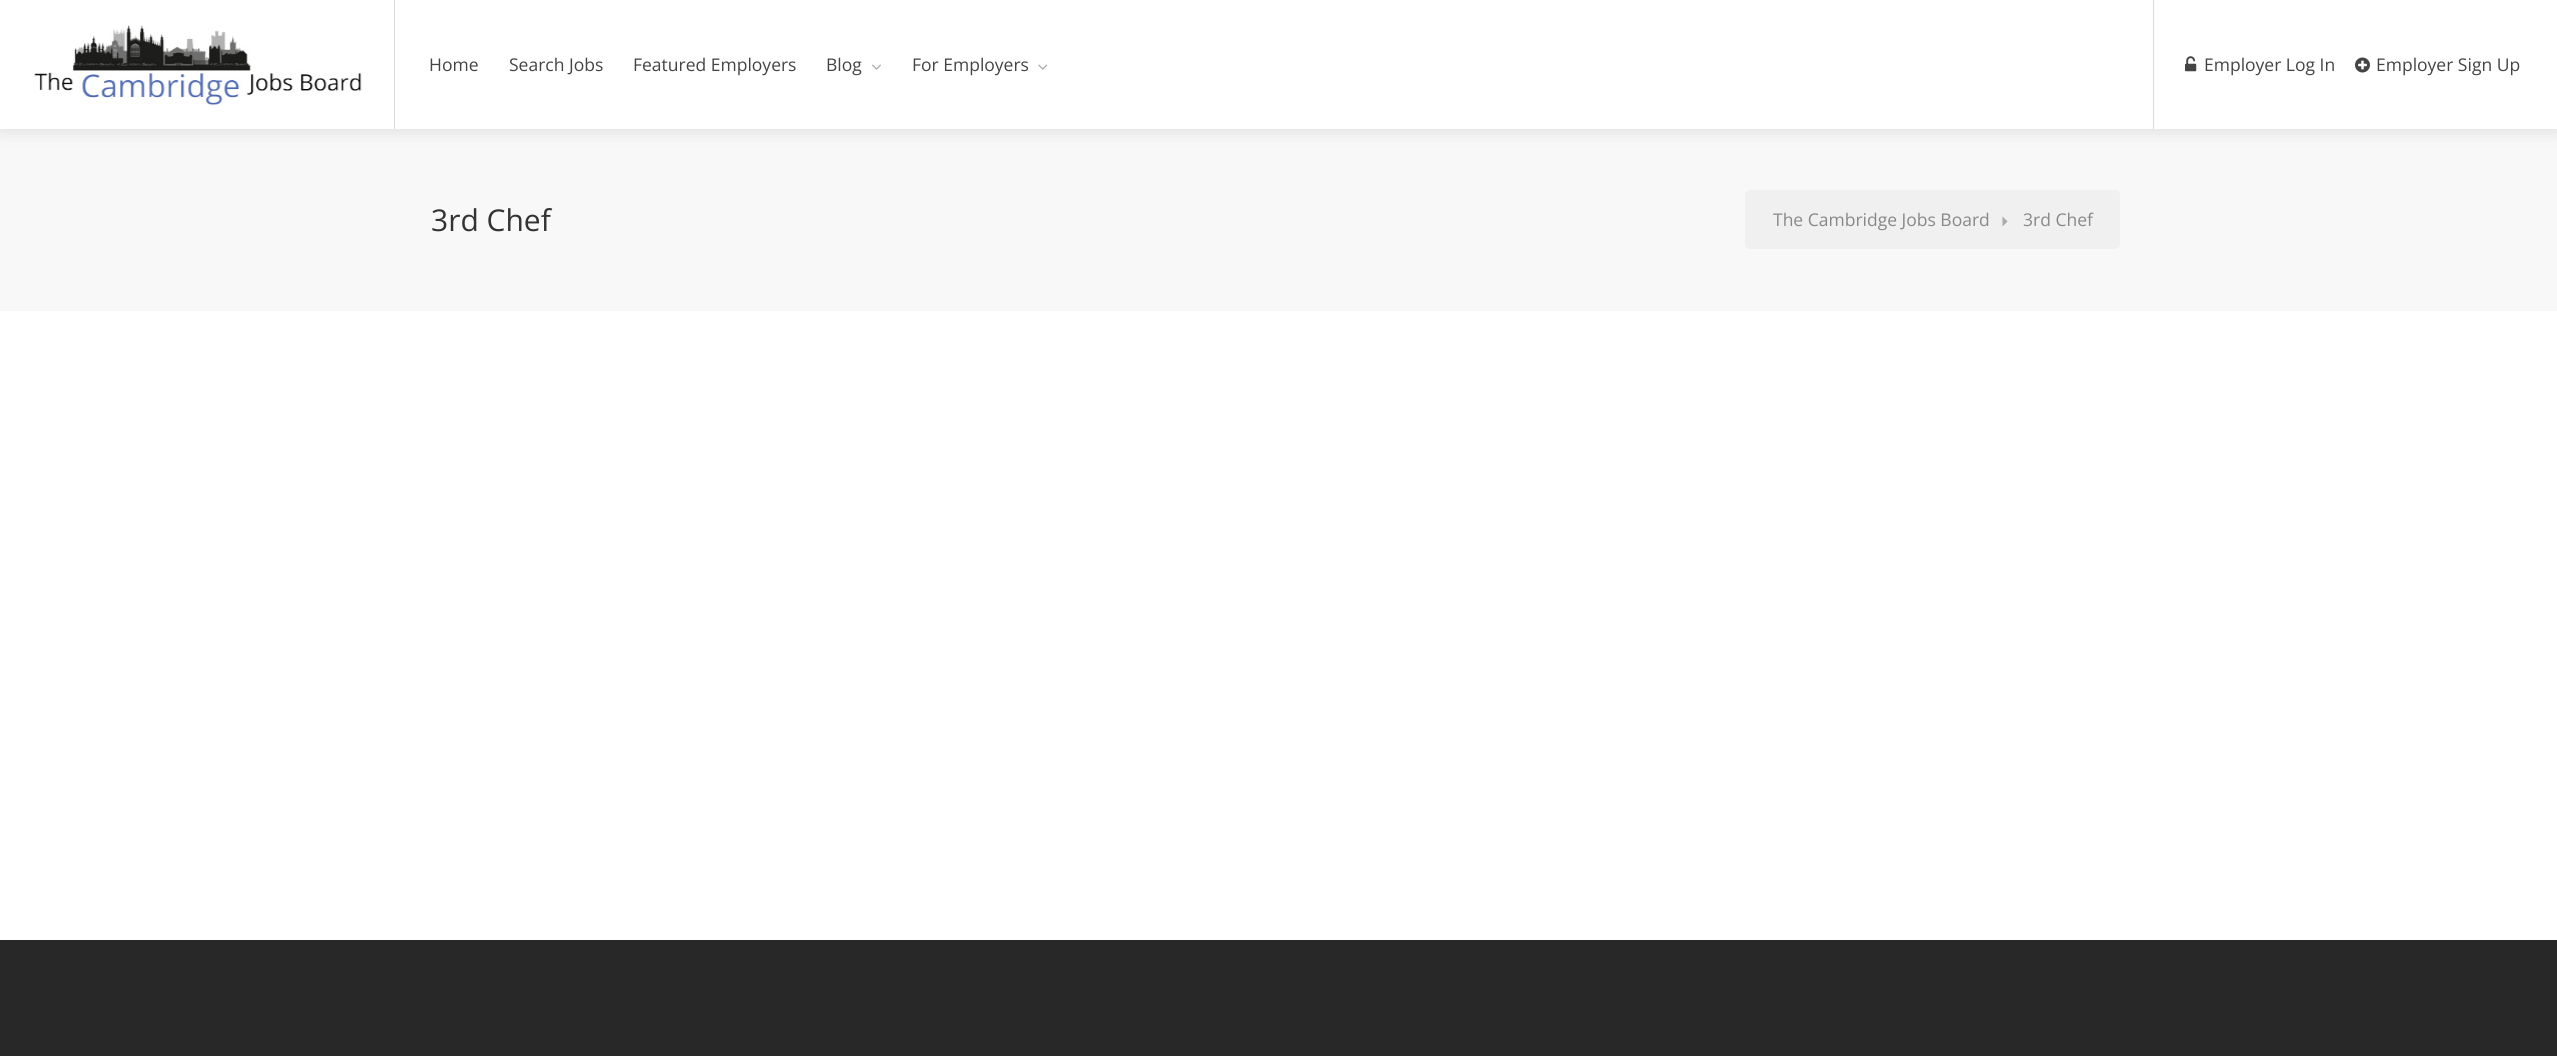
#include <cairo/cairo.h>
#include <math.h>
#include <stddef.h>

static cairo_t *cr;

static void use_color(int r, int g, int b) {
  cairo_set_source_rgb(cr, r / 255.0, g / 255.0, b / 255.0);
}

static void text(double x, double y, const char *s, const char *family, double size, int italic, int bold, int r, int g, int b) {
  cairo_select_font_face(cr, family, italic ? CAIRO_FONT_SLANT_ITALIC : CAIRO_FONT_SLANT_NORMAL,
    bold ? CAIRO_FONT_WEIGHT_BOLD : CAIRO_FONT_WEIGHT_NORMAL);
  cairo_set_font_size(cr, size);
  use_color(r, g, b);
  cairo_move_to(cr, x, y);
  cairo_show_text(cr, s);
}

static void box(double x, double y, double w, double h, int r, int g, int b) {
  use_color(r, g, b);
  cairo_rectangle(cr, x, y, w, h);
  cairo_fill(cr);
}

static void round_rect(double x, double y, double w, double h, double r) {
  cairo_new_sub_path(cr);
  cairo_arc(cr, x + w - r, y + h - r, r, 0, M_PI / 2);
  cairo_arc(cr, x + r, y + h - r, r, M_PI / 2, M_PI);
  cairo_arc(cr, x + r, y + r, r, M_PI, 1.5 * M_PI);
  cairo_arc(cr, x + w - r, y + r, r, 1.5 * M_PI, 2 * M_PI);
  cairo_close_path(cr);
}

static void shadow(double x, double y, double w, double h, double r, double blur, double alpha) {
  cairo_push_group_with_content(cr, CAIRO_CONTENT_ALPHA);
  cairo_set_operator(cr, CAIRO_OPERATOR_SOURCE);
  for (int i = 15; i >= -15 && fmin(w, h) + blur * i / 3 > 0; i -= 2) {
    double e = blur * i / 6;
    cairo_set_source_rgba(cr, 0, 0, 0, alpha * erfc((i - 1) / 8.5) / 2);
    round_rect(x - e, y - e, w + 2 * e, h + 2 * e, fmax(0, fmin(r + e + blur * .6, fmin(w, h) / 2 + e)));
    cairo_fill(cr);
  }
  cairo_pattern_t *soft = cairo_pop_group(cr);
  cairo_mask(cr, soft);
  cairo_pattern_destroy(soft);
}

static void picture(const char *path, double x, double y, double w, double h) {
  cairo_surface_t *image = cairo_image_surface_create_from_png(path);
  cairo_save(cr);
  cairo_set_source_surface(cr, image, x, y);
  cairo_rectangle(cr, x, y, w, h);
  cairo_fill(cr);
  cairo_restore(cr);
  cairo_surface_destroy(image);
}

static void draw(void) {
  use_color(255, 255, 255);
  cairo_paint(cr);
  box(0, 129, 2557, 182, 248, 248, 248);
  use_color(0, 0, 0);
  shadow(0, 0, 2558, 129, 0, 11, 0.12);
  box(0, 0, 2557, 129, 255, 255, 255);
  box(394, 0, 1, 129, 217, 217, 217);
  picture("img_01.png", 34, 25, 328, 80);
  picture("img_02.png", 872, 64, 9, 6);
  picture("img_03.png", 1038, 64, 10, 6);
  box(2153, 0, 1, 129, 217, 217, 217);
  picture("img_04.png", 2185, 56, 12, 16);
  picture("img_05.png", 2355, 57, 15, 16);
  use_color(240, 240, 240);
  round_rect(1745, 190, 375, 59, 5);
  cairo_fill(cr);
  use_color(170, 170, 170);
  cairo_new_path(cr);
  cairo_move_to(cr, 2002.5, 226.5);
  cairo_line_to(cr, 2002.5, 216.5);
  cairo_line_to(cr, 2007.5, 221.5);
  cairo_close_path(cr);
  cairo_fill(cr);
  box(0, 940, 2557, 116, 40, 40, 40);
  text(429, 71, "Home", "Open Sans", 17.5, 0, 0, 68, 68, 68);
  text(509, 71, "Search Jobs", "Open Sans", 17.5, 0, 0, 68, 68, 68);
  text(633, 71, "Featured Employers", "Open Sans", 17.5, 0, 0, 68, 68, 68);
  text(826, 71, "Blog", "Open Sans", 17.5, 0, 0, 68, 68, 68);
  text(912, 71, "For Employers", "Open Sans", 17.5, 0, 0, 68, 68, 68);
  text(2204, 71, "Employer Log In", "Open Sans", 17.5, 0, 0, 68, 68, 68);
  text(2376, 71, "Employer Sign Up", "Open Sans", 17.5, 0, 0, 68, 68, 68);
  text(431, 231, "3rd Chef", "Open Sans", 30, 0, 0, 51, 51, 51);
  text(1773, 226, "The Cambridge Jobs Board", "Open Sans", 17.5, 0, 0, 136, 136, 136);
  text(2023, 226, "3rd Chef", "Open Sans", 17.5, 0, 0, 136, 136, 136);
}

int main(void) {
  cairo_surface_t *surface = cairo_image_surface_create(CAIRO_FORMAT_RGB24, 2557, 1056);
  cr = cairo_create(surface);
  cairo_font_options_t *options = cairo_font_options_create();
  cairo_font_options_set_hint_metrics(options, CAIRO_HINT_METRICS_OFF);
  cairo_font_options_set_hint_style(options, CAIRO_HINT_STYLE_NONE);
  cairo_set_font_options(cr, options);
  cairo_set_miter_limit(cr, 4);
  draw();
  cairo_surface_write_to_png(surface, "out.png");
  cairo_font_options_destroy(options);
  cairo_destroy(cr);
  cairo_surface_destroy(surface);
  return 0;
}
